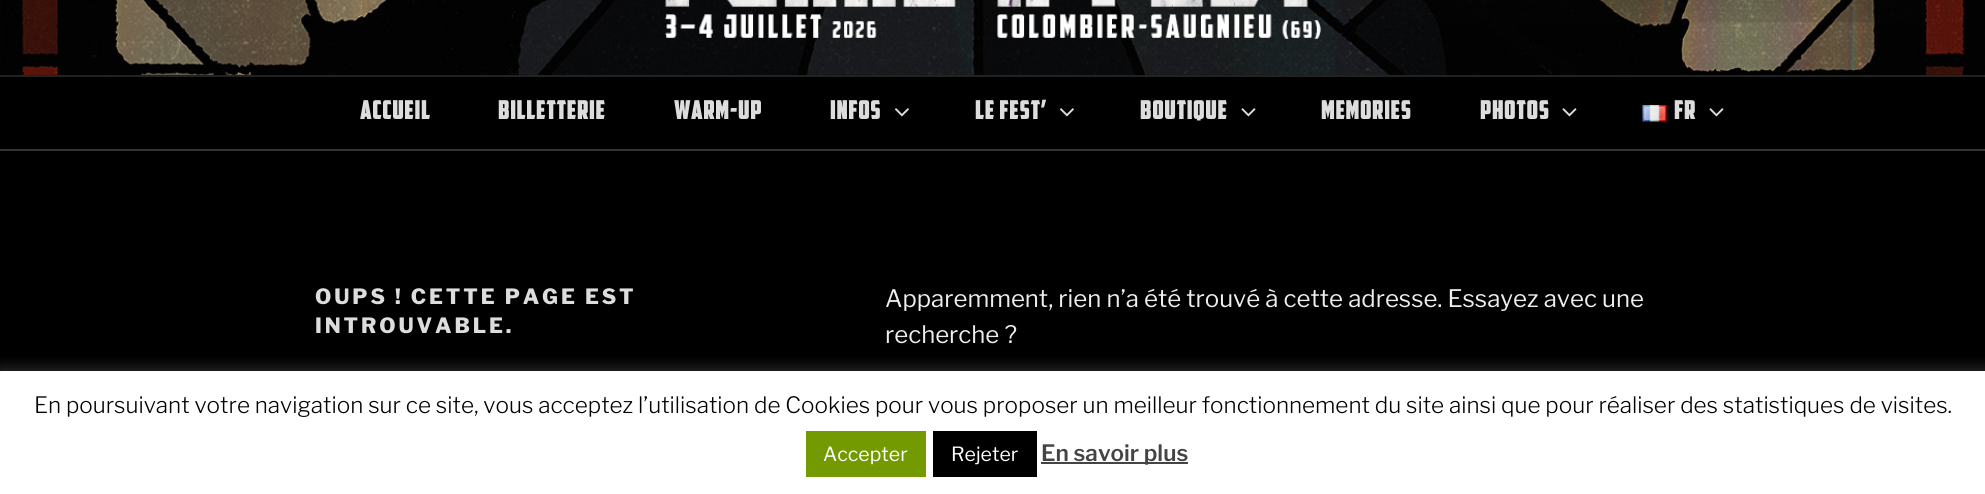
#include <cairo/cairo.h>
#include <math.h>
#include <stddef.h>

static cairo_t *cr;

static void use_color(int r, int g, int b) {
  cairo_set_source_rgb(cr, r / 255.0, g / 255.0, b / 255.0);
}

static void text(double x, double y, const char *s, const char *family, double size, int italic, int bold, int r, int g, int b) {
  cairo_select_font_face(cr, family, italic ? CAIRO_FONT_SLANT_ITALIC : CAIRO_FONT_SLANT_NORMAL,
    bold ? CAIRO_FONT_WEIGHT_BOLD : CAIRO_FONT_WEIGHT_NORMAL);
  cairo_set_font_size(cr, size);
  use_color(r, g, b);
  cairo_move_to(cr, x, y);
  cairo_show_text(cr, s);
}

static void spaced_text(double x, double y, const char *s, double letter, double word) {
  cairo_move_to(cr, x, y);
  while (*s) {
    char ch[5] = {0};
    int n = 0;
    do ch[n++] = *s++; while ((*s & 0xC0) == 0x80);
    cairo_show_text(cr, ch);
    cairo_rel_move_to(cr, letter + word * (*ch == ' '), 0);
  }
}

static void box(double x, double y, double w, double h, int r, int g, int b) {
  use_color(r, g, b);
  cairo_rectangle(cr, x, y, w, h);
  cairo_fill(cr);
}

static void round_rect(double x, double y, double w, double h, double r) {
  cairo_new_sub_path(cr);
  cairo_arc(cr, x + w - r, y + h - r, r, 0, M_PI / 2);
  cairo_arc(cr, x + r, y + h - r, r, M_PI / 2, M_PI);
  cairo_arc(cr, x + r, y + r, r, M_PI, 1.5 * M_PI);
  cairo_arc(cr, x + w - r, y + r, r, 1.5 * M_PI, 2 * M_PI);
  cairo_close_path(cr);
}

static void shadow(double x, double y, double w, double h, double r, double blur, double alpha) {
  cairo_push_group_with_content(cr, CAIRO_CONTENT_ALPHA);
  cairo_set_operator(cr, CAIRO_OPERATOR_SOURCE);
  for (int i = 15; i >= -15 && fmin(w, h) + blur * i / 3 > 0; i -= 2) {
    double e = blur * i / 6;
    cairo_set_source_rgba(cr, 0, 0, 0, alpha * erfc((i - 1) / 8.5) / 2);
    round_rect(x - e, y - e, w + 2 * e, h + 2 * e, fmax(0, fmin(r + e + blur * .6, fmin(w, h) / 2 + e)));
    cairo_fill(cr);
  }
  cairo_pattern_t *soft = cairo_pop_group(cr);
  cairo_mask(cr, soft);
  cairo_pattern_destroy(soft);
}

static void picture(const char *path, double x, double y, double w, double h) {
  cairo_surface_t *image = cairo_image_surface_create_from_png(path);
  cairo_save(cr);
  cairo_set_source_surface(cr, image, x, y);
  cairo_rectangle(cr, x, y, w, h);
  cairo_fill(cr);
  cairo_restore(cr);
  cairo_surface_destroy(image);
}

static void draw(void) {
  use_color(0, 0, 0);
  cairo_paint(cr);
  picture("img_01.png", 0, 0, 1985, 75);
  box(0, 75, 1985, 2, 34, 34, 34);
  box(0, 149, 1985, 2, 51, 51, 51);
  picture("img_02.png", 895, 108, 14, 9);
  picture("img_02.png", 1060, 108, 14, 9);
  picture("img_03.png", 1241, 108, 15, 9);
  picture("img_03.png", 1562, 108, 15, 9);
  picture("img_04.png", 1642, 105, 25, 17);
  picture("img_03.png", 1709, 108, 15, 9);
  use_color(172, 171, 171);
  shadow(0, 369, 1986, 125, 0, 7.5, 0.3);
  box(0, 371, 1985, 123, 255, 255, 255);
  box(806, 431, 120, 46, 116, 154, 2);
  box(933, 431, 104, 46, 0, 0, 0);
  box(1041, 462, 147, 2, 68, 68, 68);
  cairo_select_font_face(cr, "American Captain", CAIRO_FONT_SLANT_NORMAL, CAIRO_FONT_WEIGHT_BOLD);
  cairo_set_font_size(cr, 25);
  use_color(221, 221, 221);
  spaced_text(360, 119, "ACCUEIL", 1.25, 0);
  spaced_text(498, 119, "BILLETTERIE", 1.25, 0);
  spaced_text(674, 119, "WARM-UP", 1.25, 0);
  spaced_text(830, 119, "INFOS", 1.25, 0);
  spaced_text(975, 119, "LE FEST’", 1.25, 0);
  spaced_text(1140, 119, "BOUTIQUE", 1.25, 0);
  spaced_text(1321, 119, "MEMORIES", 1.25, 0);
  spaced_text(1480, 119, "PHOTOS", 1.25, 0);
  spaced_text(1674, 119, "FR", 1.25, 0);
  cairo_select_font_face(cr, "Libre Franklin Thin", CAIRO_FONT_SLANT_NORMAL, CAIRO_FONT_WEIGHT_NORMAL);
  cairo_set_font_size(cr, 21);
  spaced_text(315, 304, "OUPS ! CETTE PAGE EST", 2.9, 0);
  spaced_text(315, 333, "INTROUVABLE.", 2.9, 0);
  text(885, 307, "Apparemment, rien n’a été trouvé à cette adresse. Essayez avec une", "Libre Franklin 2 Thin", 24, 0, 0, 238, 238, 238);
  text(885, 343, "recherche ?", "Libre Franklin 2 Thin", 24, 0, 0, 238, 238, 238);
  text(34, 413, "En poursuivant votre navigation sur ce site, vous acceptez l’utilisation de Cookies pour vous proposer un meilleur fonctionnement du site ainsi que pour réaliser des statistiques de visites.", "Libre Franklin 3 Thin", 22.5, 0, 0, 0, 0, 0);
  text(823, 461, "Accepter", "Libre Franklin 2 Thin", 19.5, 0, 0, 255, 255, 255);
  text(951, 461, "Rejeter", "Libre Franklin 2 Thin", 19.5, 0, 0, 255, 255, 255);
  text(1041, 461, "En savoir plus", "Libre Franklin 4 Thin", 22.5, 0, 0, 68, 68, 68);
}

int main(void) {
  cairo_surface_t *surface = cairo_image_surface_create(CAIRO_FORMAT_RGB24, 1985, 494);
  cr = cairo_create(surface);
  cairo_font_options_t *options = cairo_font_options_create();
  cairo_font_options_set_hint_metrics(options, CAIRO_HINT_METRICS_OFF);
  cairo_font_options_set_hint_style(options, CAIRO_HINT_STYLE_NONE);
  cairo_set_font_options(cr, options);
  cairo_set_miter_limit(cr, 4);
  draw();
  cairo_surface_write_to_png(surface, "out.png");
  cairo_font_options_destroy(options);
  cairo_destroy(cr);
  cairo_surface_destroy(surface);
  return 0;
}
